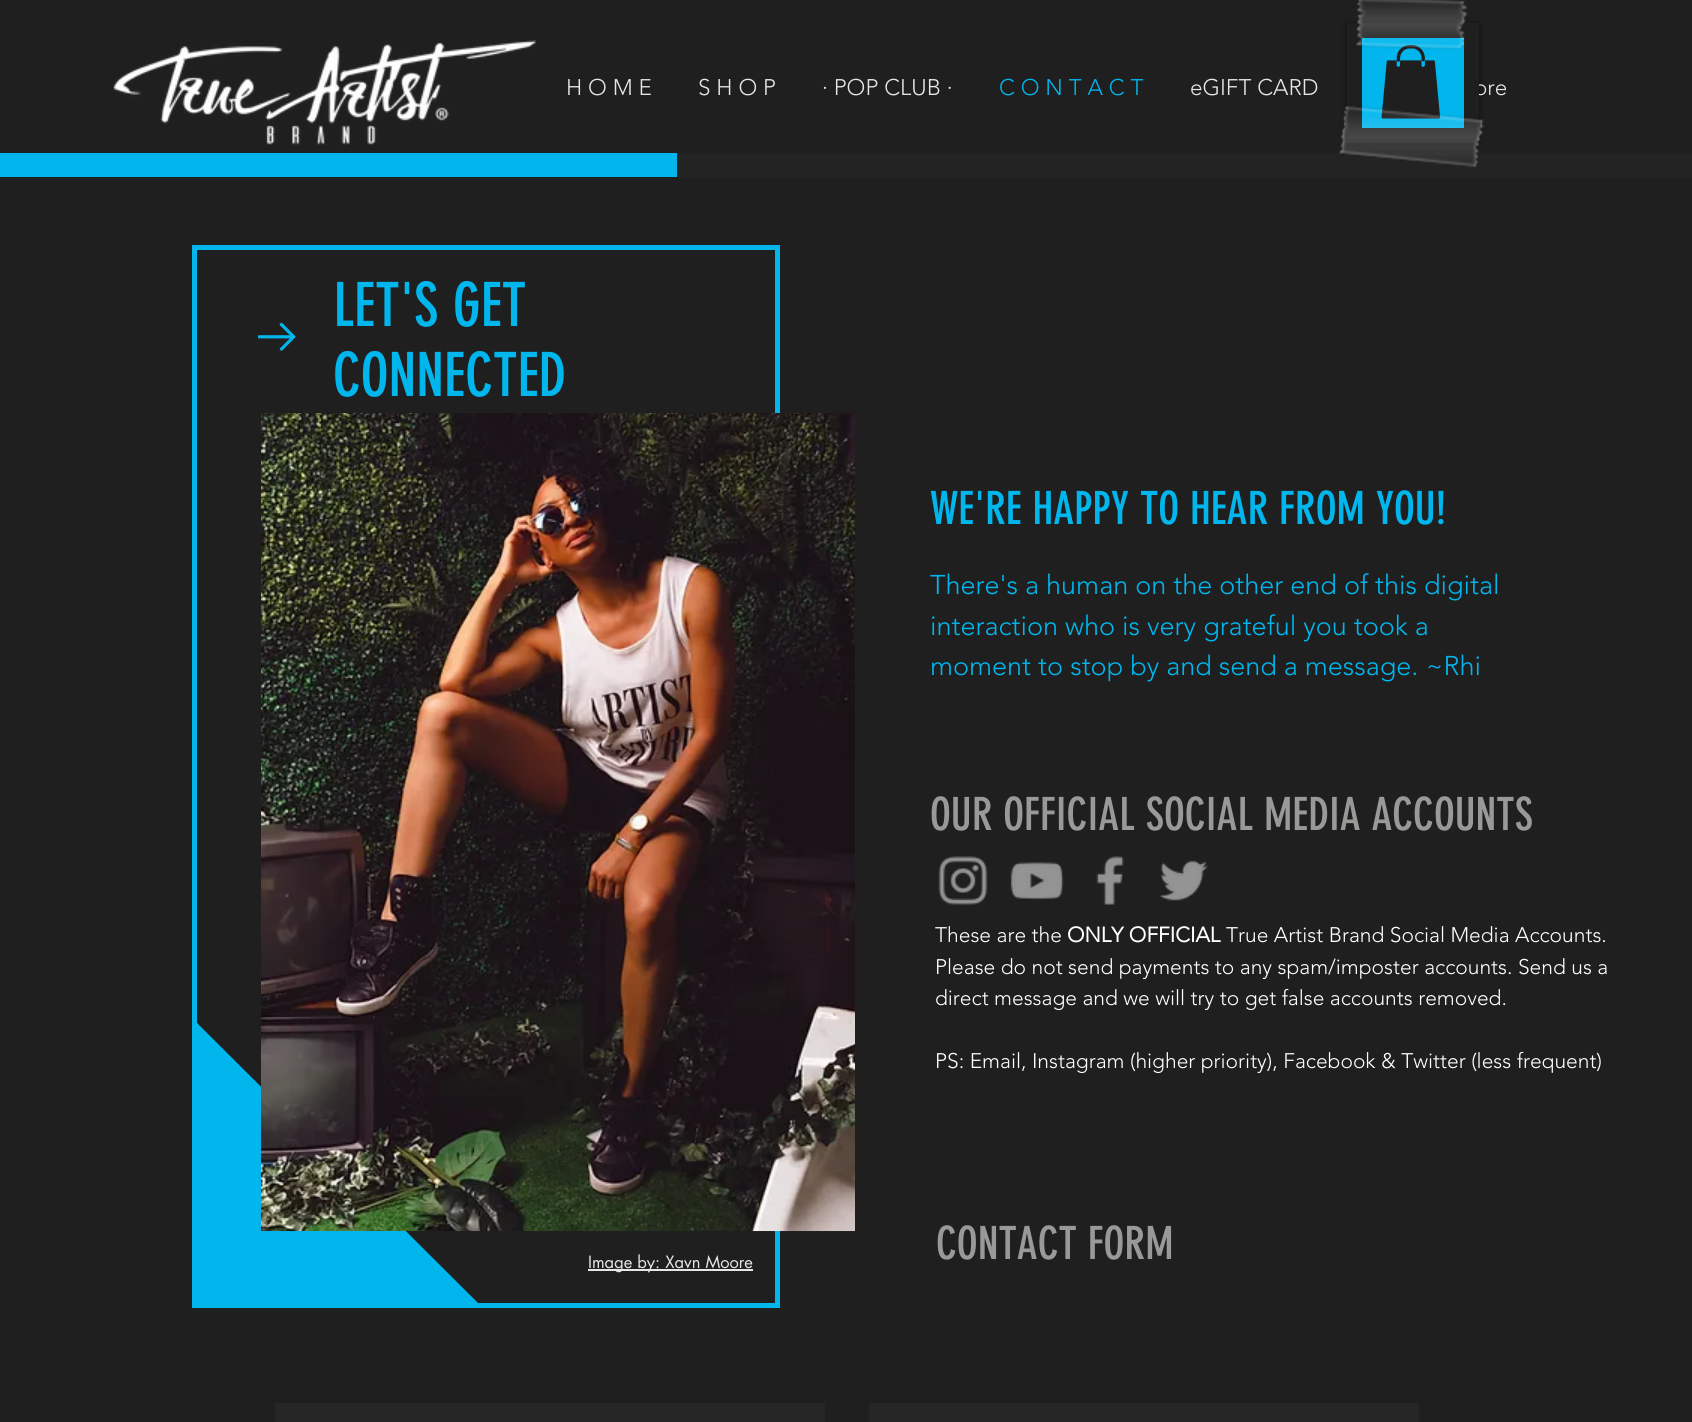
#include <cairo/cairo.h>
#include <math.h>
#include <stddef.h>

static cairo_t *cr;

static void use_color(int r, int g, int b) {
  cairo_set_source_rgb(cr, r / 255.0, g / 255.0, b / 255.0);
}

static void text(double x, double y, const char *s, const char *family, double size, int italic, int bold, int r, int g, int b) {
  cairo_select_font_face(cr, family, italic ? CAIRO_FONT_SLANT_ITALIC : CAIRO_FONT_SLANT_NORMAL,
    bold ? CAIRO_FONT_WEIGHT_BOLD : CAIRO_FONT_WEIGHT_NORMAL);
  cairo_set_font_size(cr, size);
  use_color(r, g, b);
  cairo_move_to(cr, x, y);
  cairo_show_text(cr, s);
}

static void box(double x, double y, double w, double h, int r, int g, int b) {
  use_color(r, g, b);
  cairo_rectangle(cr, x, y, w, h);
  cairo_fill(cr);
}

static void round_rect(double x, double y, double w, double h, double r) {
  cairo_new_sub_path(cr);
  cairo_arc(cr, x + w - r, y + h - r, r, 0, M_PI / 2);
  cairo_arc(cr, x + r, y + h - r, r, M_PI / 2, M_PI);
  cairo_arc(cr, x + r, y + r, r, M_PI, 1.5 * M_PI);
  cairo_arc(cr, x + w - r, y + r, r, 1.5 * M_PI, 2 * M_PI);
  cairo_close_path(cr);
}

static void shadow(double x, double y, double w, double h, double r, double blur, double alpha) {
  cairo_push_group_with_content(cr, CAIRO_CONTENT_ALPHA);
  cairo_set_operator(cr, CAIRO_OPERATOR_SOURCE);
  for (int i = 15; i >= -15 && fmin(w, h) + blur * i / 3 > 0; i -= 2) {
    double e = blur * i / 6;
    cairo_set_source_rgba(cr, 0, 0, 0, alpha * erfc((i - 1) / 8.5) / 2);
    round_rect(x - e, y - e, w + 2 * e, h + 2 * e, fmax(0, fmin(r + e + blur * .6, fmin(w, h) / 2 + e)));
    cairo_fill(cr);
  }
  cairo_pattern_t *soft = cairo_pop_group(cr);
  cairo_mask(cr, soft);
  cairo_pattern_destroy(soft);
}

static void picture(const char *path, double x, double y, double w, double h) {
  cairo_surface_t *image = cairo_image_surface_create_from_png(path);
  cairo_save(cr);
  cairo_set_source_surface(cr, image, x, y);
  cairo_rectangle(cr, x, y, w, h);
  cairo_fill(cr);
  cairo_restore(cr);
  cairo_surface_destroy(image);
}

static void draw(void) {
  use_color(31, 31, 31);
  cairo_paint(cr);
  box(677, 153, 1015, 24, 36, 35, 35);
  use_color(0, 0, 0);
  shadow(1347, 24, 132, 120, 0, 3, 0.6);
  picture("img_04.png", 113, 40, 423, 105);
  box(0, 153, 677, 24, 0, 182, 237);
  cairo_rectangle(cr, 194.5, 247.5, 583, 1058);
  cairo_set_line_width(cr, 5);
  cairo_stroke(cr);
  picture("img_05.png", 258, 322, 38, 29);
  cairo_new_path(cr);
  cairo_move_to(cr, 483, 1308);
  cairo_line_to(cr, 193, 1308);
  cairo_line_to(cr, 193, 1019);
  cairo_close_path(cr);
  cairo_fill(cr);
  box(588, 1269, 165, 2, 232, 230, 230);
  picture("img_06.png", 261, 413, 594, 819);
  picture("img_07.png", 938, 856, 50, 49);
  picture("img_08.png", 1010, 862, 54, 38);
  picture("img_09.png", 1096, 856, 28, 49);
  picture("img_10.png", 1159, 860, 49, 41);
  box(275, 1403, 550, 19, 38, 38, 38);
  box(869, 1403, 550, 19, 38, 38, 38);
  text(566, 95, "H O M E", "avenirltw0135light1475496 Light", 22.5, 0, 0, 232, 230, 230);
  text(698, 95, "S H O P", "avenirltw0135light1475496 Light", 22.5, 0, 0, 232, 230, 230);
  text(822, 95, "· POP CLUB ·", "avenirltw0135light1475496 Light", 22.5, 0, 0, 232, 230, 230);
  text(999, 95, "C O N T A C T", "avenirltw0135light1475496 Light", 22.5, 0, 0, 0, 182, 237);
  text(1190, 95, "eGIFT CARD", "avenirltw0135light1475496 Light", 22.5, 0, 0, 232, 230, 230);
  text(1474, 95, "ore", "avenirltw0135light1475496 Light", 22.5, 0, 0, 232, 230, 230);
  use_color(0, 182, 237);
  cairo_rectangle(cr, 1354.5, 30.5, 117, 105);
  cairo_fill_preserve(cr);
  use_color(31, 31, 31);
  cairo_set_line_width(cr, 15);
  cairo_stroke(cr);
  picture("img_02.png", 1381, 45, 60, 74);
  picture("img_03.png", 1339, 106, 145, 62);
  picture("img_01.png", 1356, 0, 112, 50);
  text(333, 326, "LET'S GET", "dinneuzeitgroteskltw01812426", 60, 0, 0, 0, 182, 237);
  text(333, 396, "CONNECTED", "dinneuzeitgroteskltw01812426", 60, 0, 0, 0, 182, 237);
  text(588, 1268, "Image by: Xavn Moore", "futura", 16.5, 0, 0, 232, 230, 230);
  text(930, 524, "WE'RE HAPPY TO HEAR FROM YOU!", "dinneuzeitgroteskltw01812426", 45, 0, 0, 0, 182, 237);
  text(930, 594, "There's a human on the other end of this digital", "avenirltw0135light1475496 Light", 27, 0, 0, 0, 182, 237);
  text(930, 635, "interaction who is very grateful you took a", "avenirltw0135light1475496 Light", 27, 0, 0, 0, 182, 237);
  text(930, 675, "moment to stop by and send a message. ~Rhi", "avenirltw0135light1475496 Light", 27, 0, 0, 0, 182, 237);
  text(930, 830, "OUR OFFICIAL SOCIAL MEDIA ACCOUNTS", "dinneuzeitgroteskltw01812426", 45, 0, 0, 153, 153, 151);
  text(935, 942, "These are the", "avenirltw0135light1475496 Light", 21, 0, 0, 255, 255, 255);
  text(1067, 942, "ONLY OFFICIAL", "avenirltw0135light1475496", 21, 0, 1, 255, 255, 255);
  text(1226, 942, "True Artist Brand Social Media Accounts.", "avenirltw0135light1475496 Light", 21, 0, 0, 255, 255, 255);
  text(935, 974, "Please do not send payments to any spam/imposter accounts. Send us a", "avenirltw0135light1475496 Light", 21, 0, 0, 255, 255, 255);
  text(935, 1005, "direct message and we will try to get false accounts removed.", "avenirltw0135light1475496 Light", 21, 0, 0, 255, 255, 255);
  text(935, 1068, "PS: Email, Instagram (higher priority), Facebook & Twitter (less frequent)", "avenirltw0135light1475496 Light", 21, 0, 0, 255, 255, 255);
  text(936, 1259, "CONTACT FORM", "dinneuzeitgroteskltw01812426", 45, 0, 0, 153, 153, 151);
}

int main(void) {
  cairo_surface_t *surface = cairo_image_surface_create(CAIRO_FORMAT_RGB24, 1692, 1422);
  cr = cairo_create(surface);
  cairo_font_options_t *options = cairo_font_options_create();
  cairo_font_options_set_hint_metrics(options, CAIRO_HINT_METRICS_OFF);
  cairo_font_options_set_hint_style(options, CAIRO_HINT_STYLE_NONE);
  cairo_set_font_options(cr, options);
  cairo_set_miter_limit(cr, 4);
  draw();
  cairo_surface_write_to_png(surface, "out.png");
  cairo_font_options_destroy(options);
  cairo_destroy(cr);
  cairo_surface_destroy(surface);
  return 0;
}
